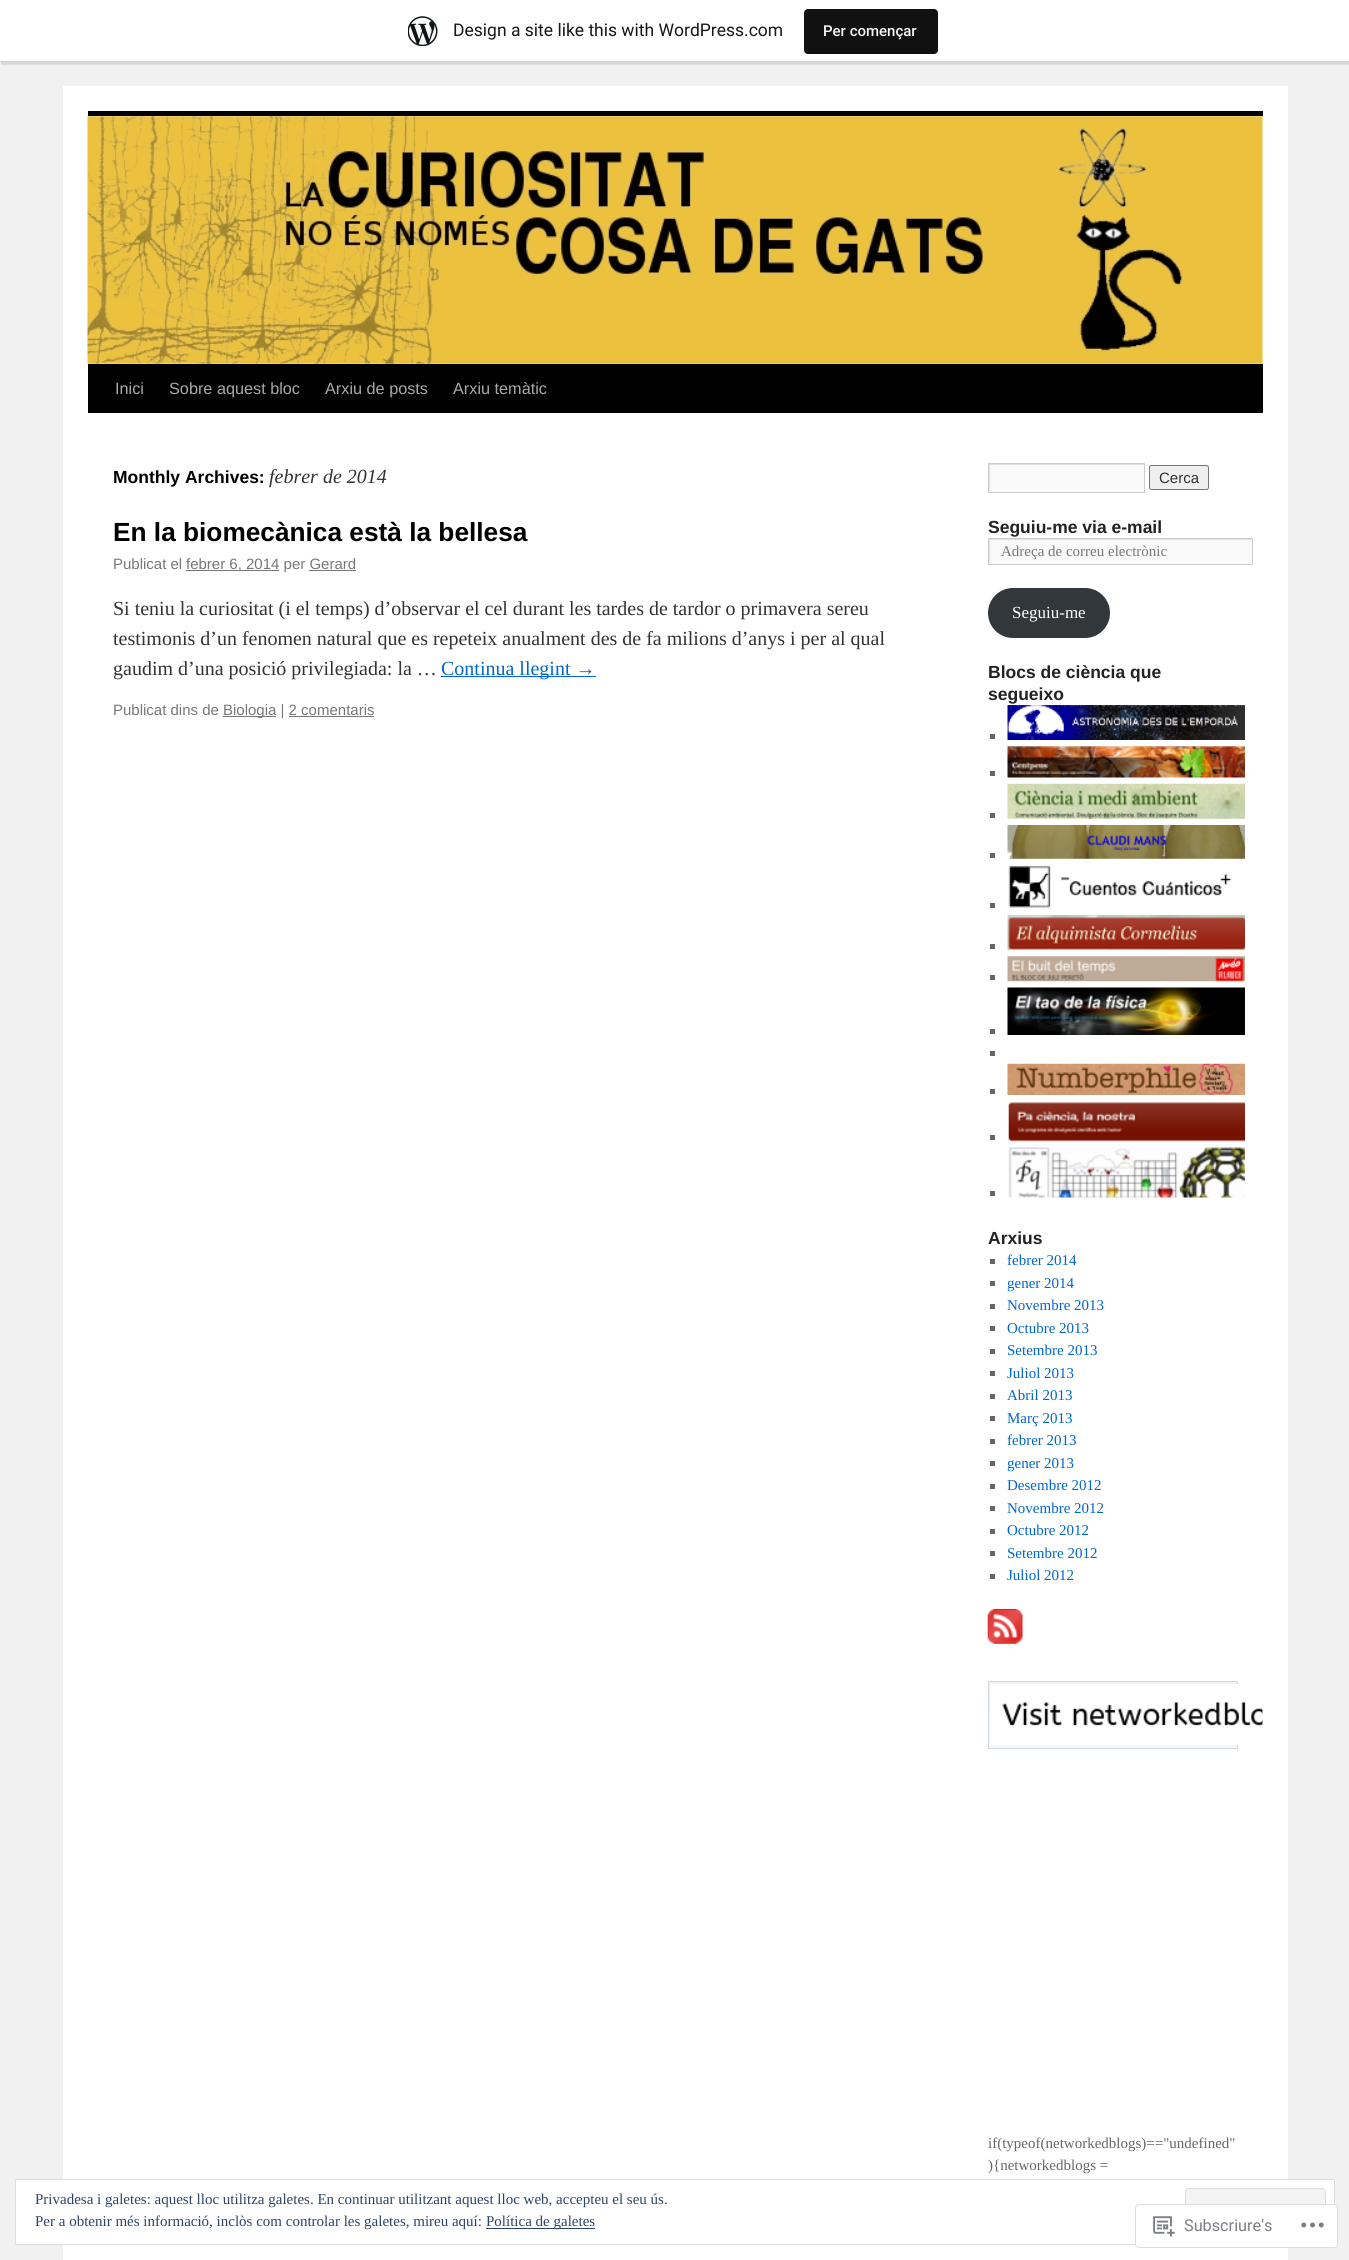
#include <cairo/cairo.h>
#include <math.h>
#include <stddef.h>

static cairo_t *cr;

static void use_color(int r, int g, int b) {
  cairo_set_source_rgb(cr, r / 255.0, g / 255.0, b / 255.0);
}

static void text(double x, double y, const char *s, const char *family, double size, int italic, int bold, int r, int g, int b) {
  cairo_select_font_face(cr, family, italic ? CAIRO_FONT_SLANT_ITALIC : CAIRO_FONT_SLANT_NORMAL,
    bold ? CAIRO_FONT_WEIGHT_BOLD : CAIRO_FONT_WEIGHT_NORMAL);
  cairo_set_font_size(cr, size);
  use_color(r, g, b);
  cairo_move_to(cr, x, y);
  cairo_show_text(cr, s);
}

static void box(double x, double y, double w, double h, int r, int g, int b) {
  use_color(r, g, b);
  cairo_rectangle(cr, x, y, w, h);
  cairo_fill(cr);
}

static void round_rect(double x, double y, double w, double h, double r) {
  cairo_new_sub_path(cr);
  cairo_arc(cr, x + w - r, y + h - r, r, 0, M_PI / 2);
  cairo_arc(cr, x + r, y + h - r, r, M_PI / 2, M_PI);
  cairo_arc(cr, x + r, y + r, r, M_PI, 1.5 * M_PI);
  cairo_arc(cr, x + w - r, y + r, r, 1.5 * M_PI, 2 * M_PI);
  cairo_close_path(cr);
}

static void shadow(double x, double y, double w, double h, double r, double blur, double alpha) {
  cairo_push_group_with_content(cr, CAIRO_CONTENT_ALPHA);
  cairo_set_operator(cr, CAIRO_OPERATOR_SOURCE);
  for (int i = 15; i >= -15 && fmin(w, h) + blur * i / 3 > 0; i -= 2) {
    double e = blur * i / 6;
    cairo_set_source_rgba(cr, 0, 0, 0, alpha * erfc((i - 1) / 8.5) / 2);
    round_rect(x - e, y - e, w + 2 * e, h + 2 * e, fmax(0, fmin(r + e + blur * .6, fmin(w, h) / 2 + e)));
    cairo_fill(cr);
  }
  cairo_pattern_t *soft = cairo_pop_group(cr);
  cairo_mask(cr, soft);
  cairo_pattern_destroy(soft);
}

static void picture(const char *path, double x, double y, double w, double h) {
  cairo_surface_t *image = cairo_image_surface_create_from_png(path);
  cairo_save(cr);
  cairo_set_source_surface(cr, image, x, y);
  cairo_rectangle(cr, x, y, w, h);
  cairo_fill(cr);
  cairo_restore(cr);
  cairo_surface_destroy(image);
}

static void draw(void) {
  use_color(241, 241, 241);
  cairo_paint(cr);
  use_color(0, 0, 0);
  shadow(0, 1, 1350, 62, 0, 1, 0.05);
  cairo_set_source_rgba(cr, 0, 0, 0, 0.08);
  cairo_new_path(cr);
  cairo_move_to(cr, 1, 61);
  cairo_line_to(cr, 1, 65);
  cairo_line_to(cr, 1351, 65);
  cairo_line_to(cr, 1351, 4);
  cairo_line_to(cr, 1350, 4);
  cairo_line_to(cr, 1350, 61);
  cairo_close_path(cr);
  cairo_fill(cr);
  box(0, 0, 1349, 61, 255, 255, 255);
  picture("img_01.png", 408, 16, 30, 30);
  use_color(17, 17, 17);
  round_rect(804, 9, 134, 45, 4);
  cairo_fill(cr);
  box(63, 86, 1225, 2174, 255, 255, 255);
  box(88, 111, 1175, 5, 0, 0, 0);
  box(88, 364, 1175, 49, 0, 0, 0);
  picture("img_02.png", 87, 116, 1176, 248);
  box(186, 570, 93, 1, 119, 119, 119);
  box(309, 570, 47, 1, 119, 119, 119);
  box(441, 676, 155, 1, 0, 102, 204);
  box(223, 716, 53, 1, 119, 119, 119);
  box(289, 716, 85, 1, 119, 119, 119);
  box(989, 465, 155, 27, 249, 249, 249);
  cairo_save(cr);
  cairo_rectangle(cr, 989, 464, 155, 27);
  cairo_clip(cr);
  use_color(224, 224, 224);
  cairo_set_fill_rule(cr, CAIRO_FILL_RULE_EVEN_ODD);
  cairo_new_path(cr);
  cairo_move_to(cr, 865, 340);
  cairo_line_to(cr, 1268, 340);
  cairo_line_to(cr, 1268, 615);
  cairo_line_to(cr, 865, 615);
  cairo_close_path(cr);
  cairo_move_to(cr, 990, 465);
  cairo_line_to(cr, 1145, 465);
  cairo_line_to(cr, 1145, 492);
  cairo_line_to(cr, 990, 492);
  cairo_close_path(cr);
  cairo_fill(cr);
  cairo_restore(cr);
  cairo_rectangle(cr, 988.5, 463.5, 156, 29);
  use_color(204, 204, 204);
  cairo_set_line_width(cr, 1);
  cairo_stroke(cr);
  use_color(239, 239, 239);
  round_rect(1149.5, 465.5, 59, 24, 2);
  cairo_fill_preserve(cr);
  use_color(118, 118, 118);
  cairo_stroke(cr);
  box(990, 539, 262, 25, 249, 249, 249);
  cairo_save(cr);
  cairo_rectangle(cr, 989, 539, 262, 25);
  cairo_clip(cr);
  use_color(224, 224, 224);
  cairo_set_fill_rule(cr, CAIRO_FILL_RULE_EVEN_ODD);
  cairo_new_path(cr);
  cairo_move_to(cr, 865, 415);
  cairo_line_to(cr, 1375, 415);
  cairo_line_to(cr, 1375, 688);
  cairo_line_to(cr, 865, 688);
  cairo_close_path(cr);
  cairo_move_to(cr, 990, 540);
  cairo_line_to(cr, 1252, 540);
  cairo_line_to(cr, 1252, 565);
  cairo_line_to(cr, 990, 565);
  cairo_close_path(cr);
  cairo_fill(cr);
  cairo_restore(cr);
  cairo_rectangle(cr, 988.5, 538.5, 264, 26);
  use_color(204, 204, 204);
  cairo_stroke(cr);
  use_color(50, 55, 60);
  round_rect(988, 588, 122, 50, 25);
  cairo_fill(cr);
  box(990, 734, 5, 5, 102, 102, 102);
  picture("img_03.png", 1007, 705, 238, 35);
  box(990, 771, 5, 5, 102, 102, 102);
  picture("img_04.png", 1007, 746, 238, 32);
  box(990, 813, 5, 5, 102, 102, 102);
  picture("img_05.png", 1007, 783, 238, 36);
  box(990, 853, 5, 5, 102, 102, 102);
  picture("img_06.png", 1007, 825, 238, 34);
  box(990, 903, 5, 5, 102, 102, 102);
  picture("img_07.png", 1008, 865, 224, 43);
  box(990, 944, 5, 5, 102, 102, 102);
  picture("img_08.png", 1007, 915, 238, 35);
  box(990, 975, 5, 5, 102, 102, 102);
  picture("img_09.png", 1007, 956, 238, 26);
  box(990, 1029, 5, 5, 102, 102, 102);
  picture("img_10.png", 1007, 987, 238, 48);
  box(990, 1051, 5, 5, 102, 102, 102);
  box(990, 1089, 5, 5, 102, 102, 102);
  picture("img_11.png", 1007, 1063, 238, 32);
  box(990, 1135, 5, 5, 102, 102, 102);
  picture("img_12.png", 1008, 1102, 237, 40);
  box(990, 1191, 5, 5, 102, 102, 102);
  picture("img_13.png", 1008, 1147, 237, 51);
  box(990, 1259, 5, 5, 102, 102, 102);
  box(990, 1281, 5, 5, 102, 102, 102);
  box(990, 1304, 5, 5, 102, 102, 102);
  box(990, 1326, 5, 5, 102, 102, 102);
  box(990, 1349, 5, 5, 102, 102, 102);
  box(990, 1371, 5, 5, 102, 102, 102);
  box(990, 1394, 5, 5, 102, 102, 102);
  box(990, 1416, 5, 5, 102, 102, 102);
  box(990, 1439, 5, 5, 102, 102, 102);
  box(990, 1461, 5, 5, 102, 102, 102);
  box(990, 1484, 5, 5, 102, 102, 102);
  box(990, 1506, 5, 5, 102, 102, 102);
  box(990, 1529, 5, 5, 102, 102, 102);
  box(990, 1551, 5, 5, 102, 102, 102);
  box(990, 1574, 5, 5, 102, 102, 102);
  picture("img_14.png", 987, 1608, 36, 36);
  use_color(245, 246, 249);
  cairo_rectangle(cr, 988.5, 1681.5, 249, 67);
  cairo_fill_preserve(cr);
  use_color(209, 215, 223);
  cairo_stroke(cr);
  box(989, 1683, 247, 28, 237, 239, 244);
  picture("img_15.png", 990, 1683, 273, 62);
  use_color(255, 255, 255);
  cairo_rectangle(cr, 15.5, 2179.5, 1319, 65);
  cairo_fill_preserve(cr);
  use_color(222, 222, 222);
  cairo_stroke(cr);
  use_color(243, 243, 243);
  round_rect(1185.5, 2188.5, 140, 47, 3.5);
  cairo_fill_preserve(cr);
  use_color(222, 222, 222);
  cairo_stroke(cr);
  box(486, 2228, 109, 1, 46, 68, 103);
  cairo_set_source_rgba(cr, 1, 1, 1, 0.98);
  round_rect(1135, 2204, 203, 44, 4);
  cairo_fill(cr);
  round_rect(1135.5, 2204.5, 202, 43, 3.5);
  cairo_set_source_rgba(cr, 0.863, 0.863, 0.871, 0.98);
  cairo_stroke(cr);
  picture("img_16.png", 1153, 2216, 22, 21);
  picture("img_17.png", 1301, 2222, 23, 6);
  text(453, 36, "Design a site like this with WordPress.com", "Roboto", 17.5, 0, 0, 23, 23, 23);
  text(823, 36, "Per començar", "Roboto Medium", 15, 0, 0, 246, 247, 247);
  text(115, 394, "Inici", "Liberation Sans", 16.25, 0, 0, 170, 170, 170);
  text(169, 394, "Sobre aquest bloc", "Liberation Sans", 16.25, 0, 0, 170, 170, 170);
  text(325, 394, "Arxiu de posts", "Liberation Sans", 16.25, 0, 0, 170, 170, 170);
  text(453, 394, "Arxiu temàtic", "Liberation Sans", 16.25, 0, 0, 170, 170, 170);
  text(113, 483, "Monthly Archives:", "Liberation Sans", 17.5, 0, 1, 0, 0, 0);
  text(269, 483, "febrer de 2014", "Liberation Serif", 20, 1, 0, 51, 51, 51);
  text(113, 541, "En la biomecànica està la bellesa", "Liberation Sans", 26.25, 0, 1, 0, 0, 0);
  text(113, 569, "Publicat el", "Liberation Sans", 15, 0, 0, 119, 119, 119);
  text(186, 569, "febrer 6, 2014 per Gerard", "Liberation Sans", 15, 0, 0, 119, 119, 119);
  text(113, 615, "Si teniu la curiositat (i el temps) d’observar el cel durant les tardes de tardor o primavera sereu", "Liberation Serif", 20, 0, 0, 51, 51, 51);
  text(113, 645, "testimonis d’un fenomen natural que es repeteix anualment des de fa milions d’anys i per al qual", "Liberation Serif", 20, 0, 0, 51, 51, 51);
  text(113, 675, "gaudim d’una posició privilegiada: la …", "Liberation Serif", 20, 0, 0, 51, 51, 51);
  text(441, 675, "Continua llegint →", "Liberation Serif", 20, 0, 0, 0, 102, 204);
  text(113, 715, "Publicat dins de", "Liberation Sans", 15, 0, 0, 119, 119, 119);
  text(223, 715, "Biologia | 2 comentaris", "Liberation Sans", 15, 0, 0, 119, 119, 119);
  text(1159, 483, "Cerca", "Liberation Sans", 15, 0, 0, 51, 51, 51);
  text(988, 533, "Seguiu-me via e-mail", "Liberation Sans", 17.5, 0, 1, 34, 34, 34);
  text(1001, 556, "Adreça de correu electrònic", "Liberation Serif", 15, 0, 0, 119, 119, 119);
  text(1012, 618, "Seguiu-me", "Liberation Serif", 17, 0, 0, 255, 255, 255);
  text(988, 678, "Blocs de ciència que", "Liberation Sans", 17.5, 0, 1, 34, 34, 34);
  text(988, 700, "segueixo", "Liberation Sans", 17.5, 0, 1, 34, 34, 34);
  text(988, 1244, "Arxius", "Liberation Sans", 17.5, 0, 1, 34, 34, 34);
  text(1007, 1265, "febrer 2014", "Liberation Serif", 15, 0, 0, 0, 102, 204);
  text(1007, 1288, "gener 2014", "Liberation Serif", 15, 0, 0, 0, 102, 204);
  text(1007, 1310, "Novembre 2013", "Liberation Serif", 15, 0, 0, 0, 102, 204);
  text(1007, 1333, "Octubre 2013", "Liberation Serif", 15, 0, 0, 0, 102, 204);
  text(1007, 1355, "Setembre 2013", "Liberation Serif", 15, 0, 0, 0, 102, 204);
  text(1007, 1378, "Juliol 2013", "Liberation Serif", 15, 0, 0, 0, 102, 204);
  text(1007, 1400, "Abril 2013", "Liberation Serif", 15, 0, 0, 0, 102, 204);
  text(1007, 1423, "Març 2013", "Liberation Serif", 15, 0, 0, 0, 102, 204);
  text(1007, 1445, "febrer 2013", "Liberation Serif", 15, 0, 0, 0, 102, 204);
  text(1007, 1468, "gener 2013", "Liberation Serif", 15, 0, 0, 0, 102, 204);
  text(1007, 1490, "Desembre 2012", "Liberation Serif", 15, 0, 0, 0, 102, 204);
  text(1007, 1513, "Novembre 2012", "Liberation Serif", 15, 0, 0, 0, 102, 204);
  text(1007, 1535, "Octubre 2012", "Liberation Serif", 15, 0, 0, 0, 102, 204);
  text(1007, 1558, "Setembre 2012", "Liberation Serif", 15, 0, 0, 0, 102, 204);
  text(1007, 1580, "Juliol 2012", "Liberation Serif", 15, 0, 0, 0, 102, 204);
  text(988, 2148, "if(typeof(networkedblogs)==\"undefined\"", "Liberation Serif", 15, 0, 0, 102, 102, 102);
  text(988, 2170, "){networkedblogs =", "Liberation Serif", 15, 0, 0, 102, 102, 102);
  text(35, 2204, "Privadesa i galetes: aquest lloc utilitza galetes. En continuar utilitzant aquest lloc web, accepteu el seu ús.", "Liberation Serif", 15, 0, 0, 46, 68, 103);
  text(35, 2226, "Per a obtenir més informació, inclòs com controlar les galetes, mireu aquí:", "Liberation Serif", 15, 0, 0, 46, 68, 103);
  text(486, 2226, "Política de galetes", "Liberation Serif", 15, 0, 0, 46, 68, 103);
  text(1184, 2231, "Subscriure's", "Roboto", 16.25, 0, 0, 123, 127, 132);
}

int main(void) {
  cairo_surface_t *surface = cairo_image_surface_create(CAIRO_FORMAT_RGB24, 1349, 2260);
  cr = cairo_create(surface);
  cairo_font_options_t *options = cairo_font_options_create();
  cairo_font_options_set_hint_metrics(options, CAIRO_HINT_METRICS_OFF);
  cairo_font_options_set_hint_style(options, CAIRO_HINT_STYLE_NONE);
  cairo_set_font_options(cr, options);
  cairo_set_miter_limit(cr, 4);
  draw();
  cairo_surface_write_to_png(surface, "out.png");
  cairo_font_options_destroy(options);
  cairo_destroy(cr);
  cairo_surface_destroy(surface);
  return 0;
}
